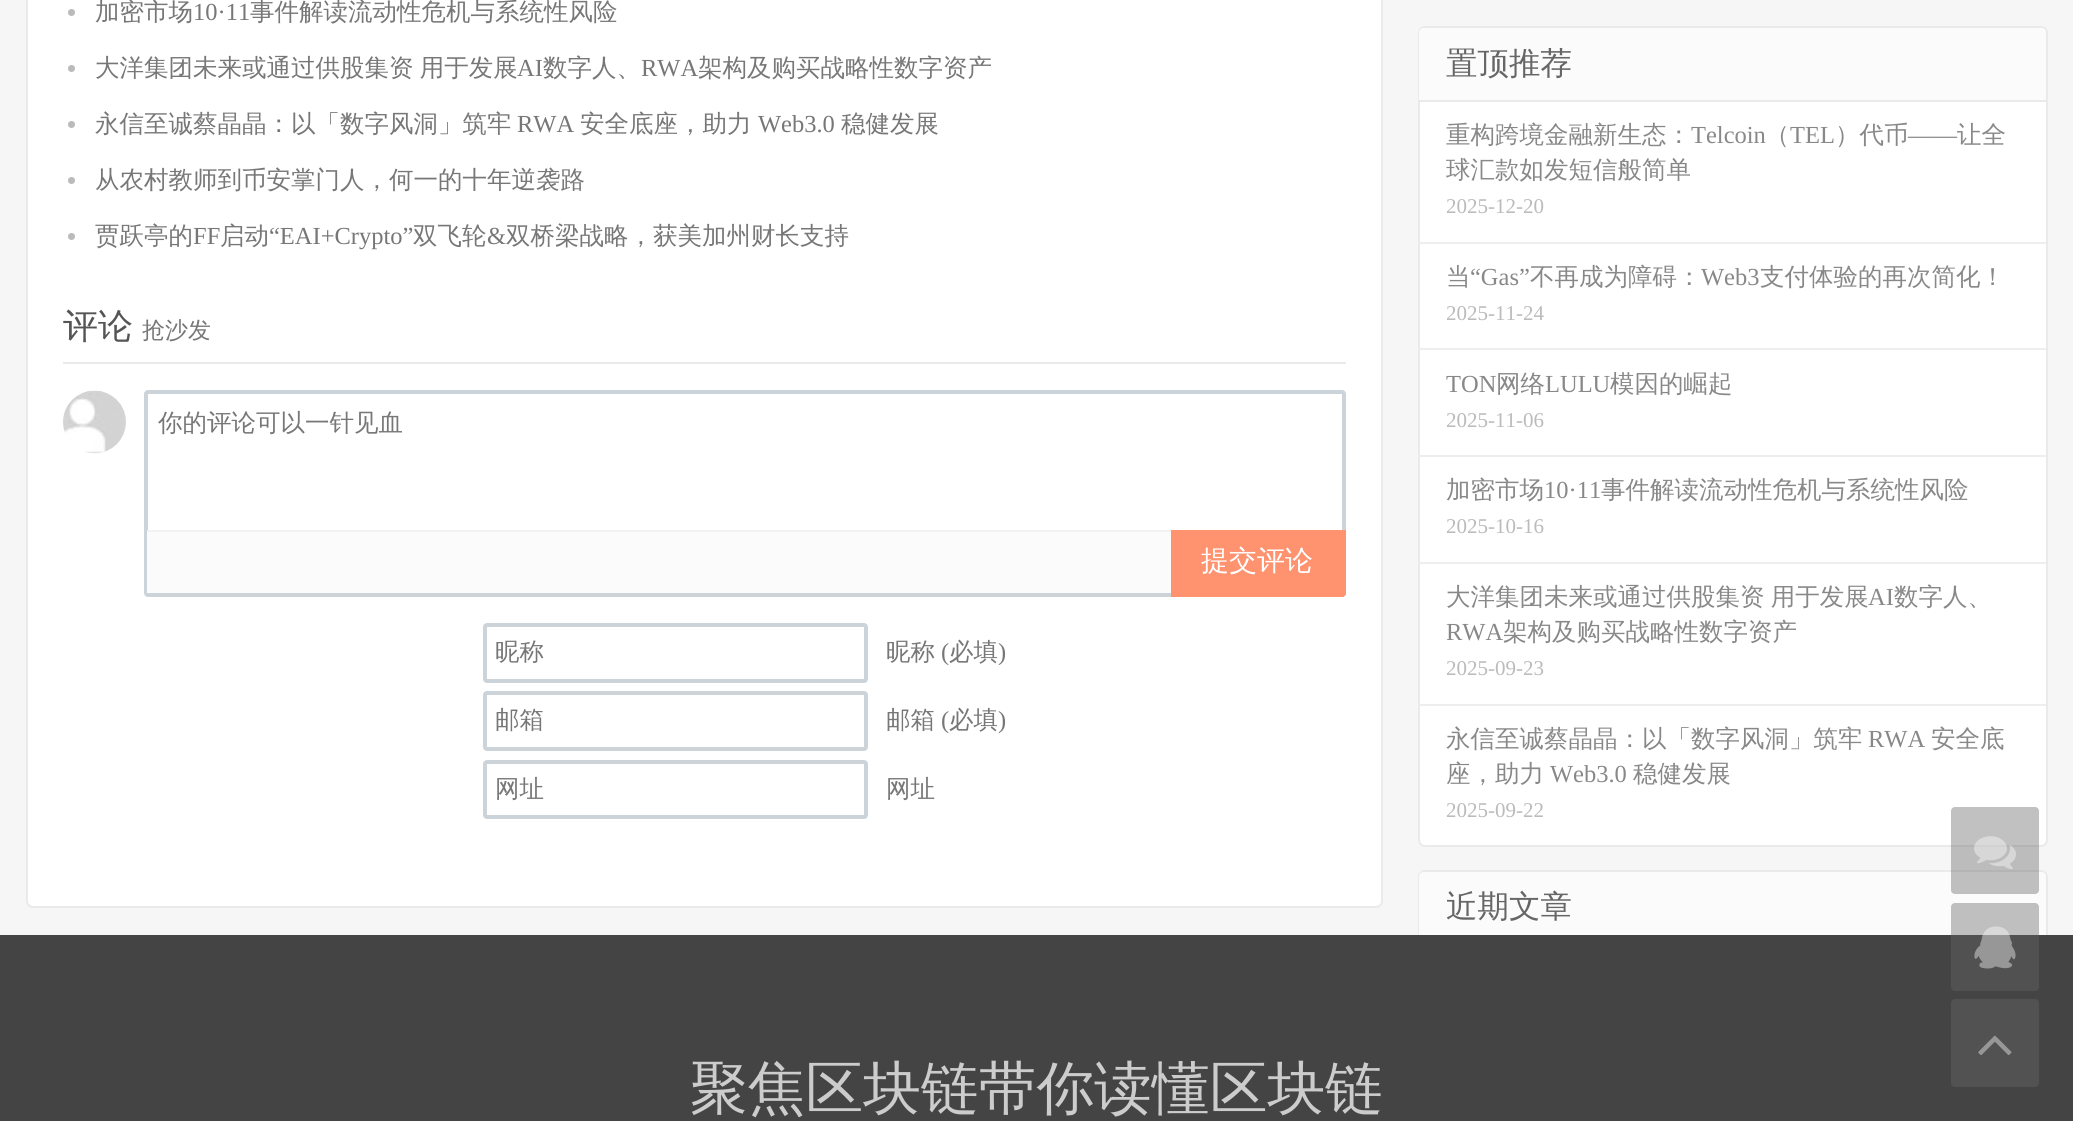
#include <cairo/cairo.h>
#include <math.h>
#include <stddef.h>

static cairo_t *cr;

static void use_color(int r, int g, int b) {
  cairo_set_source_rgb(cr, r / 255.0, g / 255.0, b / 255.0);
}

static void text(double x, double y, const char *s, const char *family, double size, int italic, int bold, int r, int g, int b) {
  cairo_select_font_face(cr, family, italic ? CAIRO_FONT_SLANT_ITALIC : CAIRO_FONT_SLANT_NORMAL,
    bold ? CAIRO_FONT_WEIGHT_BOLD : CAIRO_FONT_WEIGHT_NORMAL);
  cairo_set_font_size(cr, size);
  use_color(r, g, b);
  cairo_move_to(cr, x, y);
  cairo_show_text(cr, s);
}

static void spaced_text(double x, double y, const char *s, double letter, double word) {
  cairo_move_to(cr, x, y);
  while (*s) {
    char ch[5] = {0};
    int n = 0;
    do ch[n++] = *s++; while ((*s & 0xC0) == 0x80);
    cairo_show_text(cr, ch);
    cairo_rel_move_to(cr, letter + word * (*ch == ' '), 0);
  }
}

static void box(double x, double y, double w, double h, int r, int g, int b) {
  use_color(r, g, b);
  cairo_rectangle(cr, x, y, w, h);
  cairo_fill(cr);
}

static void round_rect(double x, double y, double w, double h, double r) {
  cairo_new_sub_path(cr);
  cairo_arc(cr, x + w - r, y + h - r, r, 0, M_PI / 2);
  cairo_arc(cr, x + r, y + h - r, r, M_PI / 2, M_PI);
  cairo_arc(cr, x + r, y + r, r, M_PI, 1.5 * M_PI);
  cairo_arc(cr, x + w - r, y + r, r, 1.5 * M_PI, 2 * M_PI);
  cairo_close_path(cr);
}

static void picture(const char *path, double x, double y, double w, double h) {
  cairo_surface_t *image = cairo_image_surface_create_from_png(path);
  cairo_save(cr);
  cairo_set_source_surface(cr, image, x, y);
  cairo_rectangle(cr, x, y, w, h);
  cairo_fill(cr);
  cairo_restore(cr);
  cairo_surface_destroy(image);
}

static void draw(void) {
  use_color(246, 246, 246);
  cairo_paint(cr);
  use_color(255, 255, 255);
  round_rect(27, -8, 1355, 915, 6);
  cairo_fill_preserve(cr);
  use_color(234, 234, 234);
  cairo_stroke(cr);
  use_color(187, 187, 187);
  cairo_arc(cr, 71.5, 12.5, 3.5, 0, 2 * M_PI);
  cairo_fill(cr);
  cairo_arc(cr, 71.5, 68.5, 3.5, 0, 2 * M_PI);
  cairo_fill(cr);
  cairo_arc(cr, 71.5, 124.5, 3.5, 0, 2 * M_PI);
  cairo_fill(cr);
  cairo_arc(cr, 71.5, 180.5, 3.5, 0, 2 * M_PI);
  cairo_fill(cr);
  cairo_arc(cr, 71.5, 236.5, 3.5, 0, 2 * M_PI);
  cairo_fill(cr);
  box(63, 362, 1283, 2, 234, 234, 234);
  picture("img_01.png", 63, 390, 63, 64);
  round_rect(146, 392, 1198, 203, 2);
  use_color(204, 212, 217);
  cairo_set_line_width(cr, 4);
  cairo_stroke(cr);
  box(147, 532, 1024, 61, 251, 251, 251);
  box(147, 530, 1024, 2, 242, 242, 242);
  use_color(255, 146, 111);
  cairo_new_path(cr);
  cairo_move_to(cr, 1171, 530);
  cairo_line_to(cr, 1346, 530);
  cairo_line_to(cr, 1346, 593);
  cairo_curve_to(cr, 1346, 595, 1344, 597, 1342, 597);
  cairo_line_to(cr, 1171, 597);
  cairo_close_path(cr);
  cairo_fill(cr);
  box(1345, 593, 1, 2, 255, 146, 111);
  box(1342, 596, 2, 1, 255, 146, 111);
  round_rect(485, 625, 381, 56, 2);
  use_color(204, 212, 217);
  cairo_stroke(cr);
  round_rect(485, 693, 381, 56, 2);
  cairo_stroke(cr);
  round_rect(485, 762, 381, 55, 2);
  cairo_stroke(cr);
  use_color(255, 255, 255);
  round_rect(1419, 27, 628, 819, 6);
  cairo_fill_preserve(cr);
  use_color(234, 234, 234);
  cairo_set_line_width(cr, 2);
  cairo_stroke(cr);
  use_color(251, 251, 251);
  cairo_new_path(cr);
  cairo_move_to(cr, 1424, 28);
  cairo_line_to(cr, 2041, 28);
  cairo_curve_to(cr, 2044, 28, 2046, 30, 2046, 33);
  cairo_line_to(cr, 2046, 102);
  cairo_line_to(cr, 1419, 102);
  cairo_line_to(cr, 1419, 33);
  cairo_curve_to(cr, 1419, 30, 1421, 28, 1424, 28);
  cairo_close_path(cr);
  cairo_fill(cr);
  box(1419, 100, 627, 2, 234, 234, 234);
  box(1419, 242, 627, 2, 238, 238, 238);
  box(1419, 348, 627, 2, 238, 238, 238);
  box(1419, 455, 627, 2, 238, 238, 238);
  box(1419, 562, 627, 2, 238, 238, 238);
  box(1419, 704, 627, 2, 238, 238, 238);
  round_rect(1419, 871, 628, 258, 6);
  use_color(234, 234, 234);
  cairo_stroke(cr);
  use_color(251, 251, 251);
  cairo_new_path(cr);
  cairo_move_to(cr, 1424, 872);
  cairo_line_to(cr, 2041, 872);
  cairo_curve_to(cr, 2044, 872, 2046, 874, 2046, 877);
  cairo_line_to(cr, 2046, 945);
  cairo_line_to(cr, 1419, 945);
  cairo_line_to(cr, 1419, 877);
  cairo_curve_to(cr, 1419, 874, 1421, 872, 1424, 872);
  cairo_close_path(cr);
  cairo_fill(cr);
  box(0, 935, 2073, 186, 68, 68, 68);
  cairo_set_source_rgba(cr, 0.4, 0.4, 0.4, 0.4);
  round_rect(1951, 807, 88, 87, 4);
  cairo_fill(cr);
  picture("img_02.png", 1974, 836, 42, 33);
  round_rect(1951, 903, 88, 88, 4);
  cairo_fill(cr);
  picture("img_03.png", 1974, 926, 42, 43);
  use_color(82, 82, 82);
  round_rect(1951, 999, 88, 88, 4);
  cairo_fill(cr);
  picture("img_04.png", 1978, 1035, 34, 20);
  text(95, 20, "加密市场", "WenQuanYi Zen Hei Medium", 24.5, 0, 0, 119, 119, 119);
  text(193, 20, "10·11", "Liberation Serif", 24.5, 0, 0, 119, 119, 119);
  text(250, 20, "事件解读流动性危机与系统性风险", "WenQuanYi Zen Hei Medium", 24.5, 0, 0, 119, 119, 119);
  spaced_text(95, 76, "大洋集团未来或通过供股集资 用于发展", 0, -1);
  text(517, 76, "AI", "Liberation Serif", 24.5, 0, 0, 119, 119, 119);
  text(543, 76, "数字人、", "WenQuanYi Zen Hei Medium", 24.5, 0, 0, 119, 119, 119);
  text(641, 76, "RWA", "Liberation Serif", 24.5, 0, 0, 119, 119, 119);
  text(698, 76, "架构及购买战略性数字资产", "WenQuanYi Zen Hei Medium", 24.5, 0, 0, 119, 119, 119);
  text(95, 132, "永信至诚蔡晶晶：以「数字风洞」筑牢", "WenQuanYi Zen Hei Medium", 24.5, 0, 0, 119, 119, 119);
  text(517, 132, "RWA", "Liberation Serif", 24.5, 0, 0, 119, 119, 119);
  text(580, 132, "安全底座，助力", "WenQuanYi Zen Hei Medium", 24.5, 0, 0, 119, 119, 119);
  text(758, 132, "Web3.0", "Liberation Serif", 24.5, 0, 0, 119, 119, 119);
  text(841, 132, "稳健发展", "WenQuanYi Zen Hei Medium", 24.5, 0, 0, 119, 119, 119);
  text(95, 188, "从农村教师到币安掌门人，何一的十年逆袭路", "WenQuanYi Zen Hei Medium", 24.5, 0, 0, 119, 119, 119);
  text(95, 244, "贾跃亭的", "WenQuanYi Zen Hei Medium", 24.5, 0, 0, 119, 119, 119);
  text(193, 244, "FF", "Liberation Serif", 24.5, 0, 0, 119, 119, 119);
  text(220, 244, "启动", "WenQuanYi Zen Hei Medium", 24.5, 0, 0, 119, 119, 119);
  text(269, 244, "“EAI+Crypto”", "Liberation Serif", 24.5, 0, 0, 119, 119, 119);
  text(413, 244, "双飞轮", "WenQuanYi Zen Hei Medium", 24.5, 0, 0, 119, 119, 119);
  text(487, 244, "&", "Liberation Serif", 24.5, 0, 0, 119, 119, 119);
  text(506, 244, "双桥梁战略，获美加州财长支持", "WenQuanYi Zen Hei Medium", 24.5, 0, 0, 119, 119, 119);
  text(63, 338, "评论", "WenQuanYi Zen Hei Medium", 35, 0, 0, 85, 85, 85);
  text(142, 338, "抢沙发", "WenQuanYi Zen Hei Medium", 23, 0, 0, 119, 119, 119);
  text(158, 431, "你的评论可以一针见血", "WenQuanYi Zen Hei Medium", 24.5, 0, 0, 119, 119, 119);
  text(1201, 570, "提交评论", "WenQuanYi Zen Hei Medium", 28, 0, 0, 255, 255, 255);
  text(495, 660, "昵称", "WenQuanYi Zen Hei Medium", 24.5, 0, 0, 119, 119, 119);
  text(886, 660, "昵称", "WenQuanYi Zen Hei Medium", 24.5, 0, 0, 119, 119, 119);
  text(941, 660, "(", "Liberation Serif", 24.5, 0, 0, 119, 119, 119);
  text(949, 660, "必填", "WenQuanYi Zen Hei Medium", 24.5, 0, 0, 119, 119, 119);
  text(998, 660, ")", "Liberation Serif", 24.5, 0, 0, 119, 119, 119);
  text(495, 728, "邮箱", "WenQuanYi Zen Hei Medium", 24.5, 0, 0, 119, 119, 119);
  text(886, 728, "邮箱", "WenQuanYi Zen Hei Medium", 24.5, 0, 0, 119, 119, 119);
  text(941, 728, "(", "Liberation Serif", 24.5, 0, 0, 119, 119, 119);
  text(949, 728, "必填", "WenQuanYi Zen Hei Medium", 24.5, 0, 0, 119, 119, 119);
  text(998, 728, ")", "Liberation Serif", 24.5, 0, 0, 119, 119, 119);
  text(495, 797, "网址", "WenQuanYi Zen Hei Medium", 24.5, 0, 0, 119, 119, 119);
  text(886, 797, "网址", "WenQuanYi Zen Hei Medium", 24.5, 0, 0, 119, 119, 119);
  text(1446, 74, "置顶推荐", "WenQuanYi Zen Hei Medium", 31.5, 0, 0, 102, 102, 102);
  text(1446, 143, "重构跨境金融新生态：", "WenQuanYi Zen Hei Medium", 24.5, 0, 0, 136, 136, 136);
  text(1691, 143, "Telcoin", "Liberation Serif", 24.5, 0, 0, 136, 136, 136);
  text(1765, 143, "（", "WenQuanYi Zen Hei Medium", 24.5, 0, 0, 136, 136, 136);
  text(1790, 143, "TEL", "Liberation Serif", 24.5, 0, 0, 136, 136, 136);
  text(1835, 143, "）代币", "WenQuanYi Zen Hei Medium", 24.5, 0, 0, 136, 136, 136);
  text(1908, 143, "——", "Liberation Serif", 24.5, 0, 0, 136, 136, 136);
  text(1957, 143, "让全", "WenQuanYi Zen Hei Medium", 24.5, 0, 0, 136, 136, 136);
  text(1446, 178, "球汇款如发短信般简单", "WenQuanYi Zen Hei Medium", 24.5, 0, 0, 136, 136, 136);
  text(1446, 213, "2025-12-20", "Liberation Serif", 21, 0, 0, 187, 187, 187);
  text(1446, 285, "当", "WenQuanYi Zen Hei Medium", 24.5, 0, 0, 136, 136, 136);
  text(1470, 285, "“Gas”", "Liberation Serif", 24.5, 0, 0, 136, 136, 136);
  text(1530, 285, "不再成为障碍：", "WenQuanYi Zen Hei Medium", 24.5, 0, 0, 136, 136, 136);
  text(1701, 285, "Web3", "Liberation Serif", 24.5, 0, 0, 136, 136, 136);
  text(1760, 285, "支付体验的再次简化！", "WenQuanYi Zen Hei Medium", 24.5, 0, 0, 136, 136, 136);
  text(1446, 320, "2025-11-24", "Liberation Serif", 21, 0, 0, 187, 187, 187);
  text(1446, 392, "TON", "Liberation Serif", 24.5, 0, 0, 136, 136, 136);
  text(1496, 392, "网络", "WenQuanYi Zen Hei Medium", 24.5, 0, 0, 136, 136, 136);
  text(1545, 392, "LULU", "Liberation Serif", 24.5, 0, 0, 136, 136, 136);
  text(1610, 392, "模因的崛起", "WenQuanYi Zen Hei Medium", 24.5, 0, 0, 136, 136, 136);
  text(1446, 427, "2025-11-06", "Liberation Serif", 21, 0, 0, 187, 187, 187);
  text(1446, 498, "加密市场", "WenQuanYi Zen Hei Medium", 24.5, 0, 0, 136, 136, 136);
  text(1544, 498, "10·11", "Liberation Serif", 24.5, 0, 0, 136, 136, 136);
  text(1601, 498, "事件解读流动性危机与系统性风险", "WenQuanYi Zen Hei Medium", 24.5, 0, 0, 136, 136, 136);
  text(1446, 533, "2025-10-16", "Liberation Serif", 21, 0, 0, 187, 187, 187);
  cairo_select_font_face(cr, "WenQuanYi Zen Hei Medium", CAIRO_FONT_SLANT_NORMAL, CAIRO_FONT_WEIGHT_NORMAL);
  cairo_set_font_size(cr, 24.5);
  use_color(136, 136, 136);
  spaced_text(1446, 605, "大洋集团未来或通过供股集资 用于发展", 0, -1);
  text(1868, 605, "AI", "Liberation Serif", 24.5, 0, 0, 136, 136, 136);
  text(1894, 605, "数字人、", "WenQuanYi Zen Hei Medium", 24.5, 0, 0, 136, 136, 136);
  text(1446, 640, "RWA", "Liberation Serif", 24.5, 0, 0, 136, 136, 136);
  text(1503, 640, "架构及购买战略性数字资产", "WenQuanYi Zen Hei Medium", 24.5, 0, 0, 136, 136, 136);
  text(1446, 675, "2025-09-23", "Liberation Serif", 21, 0, 0, 187, 187, 187);
  text(1446, 747, "永信至诚蔡晶晶：以「数字风洞」筑牢", "WenQuanYi Zen Hei Medium", 24.5, 0, 0, 136, 136, 136);
  text(1868, 747, "RWA", "Liberation Serif", 24.5, 0, 0, 136, 136, 136);
  text(1931, 747, "安全底", "WenQuanYi Zen Hei Medium", 24.5, 0, 0, 136, 136, 136);
  text(1446, 782, "座，助力", "WenQuanYi Zen Hei Medium", 24.5, 0, 0, 136, 136, 136);
  text(1550, 782, "Web3.0", "Liberation Serif", 24.5, 0, 0, 136, 136, 136);
  text(1633, 782, "稳健发展", "WenQuanYi Zen Hei Medium", 24.5, 0, 0, 136, 136, 136);
  text(1446, 817, "2025-09-22", "Liberation Serif", 21, 0, 0, 187, 187, 187);
  text(1446, 917, "近期文章", "WenQuanYi Zen Hei Medium", 31.5, 0, 0, 102, 102, 102);
  text(690, 1108, "聚焦区块链带你读懂区块链", "WenQuanYi Zen Hei Medium", 57.75, 0, 0, 204, 204, 204);
}

int main(void) {
  cairo_surface_t *surface = cairo_image_surface_create(CAIRO_FORMAT_RGB24, 2073, 1121);
  cr = cairo_create(surface);
  cairo_font_options_t *options = cairo_font_options_create();
  cairo_font_options_set_hint_metrics(options, CAIRO_HINT_METRICS_OFF);
  cairo_font_options_set_hint_style(options, CAIRO_HINT_STYLE_NONE);
  cairo_set_font_options(cr, options);
  cairo_set_miter_limit(cr, 4);
  draw();
  cairo_surface_write_to_png(surface, "out.png");
  cairo_font_options_destroy(options);
  cairo_destroy(cr);
  cairo_surface_destroy(surface);
  return 0;
}
